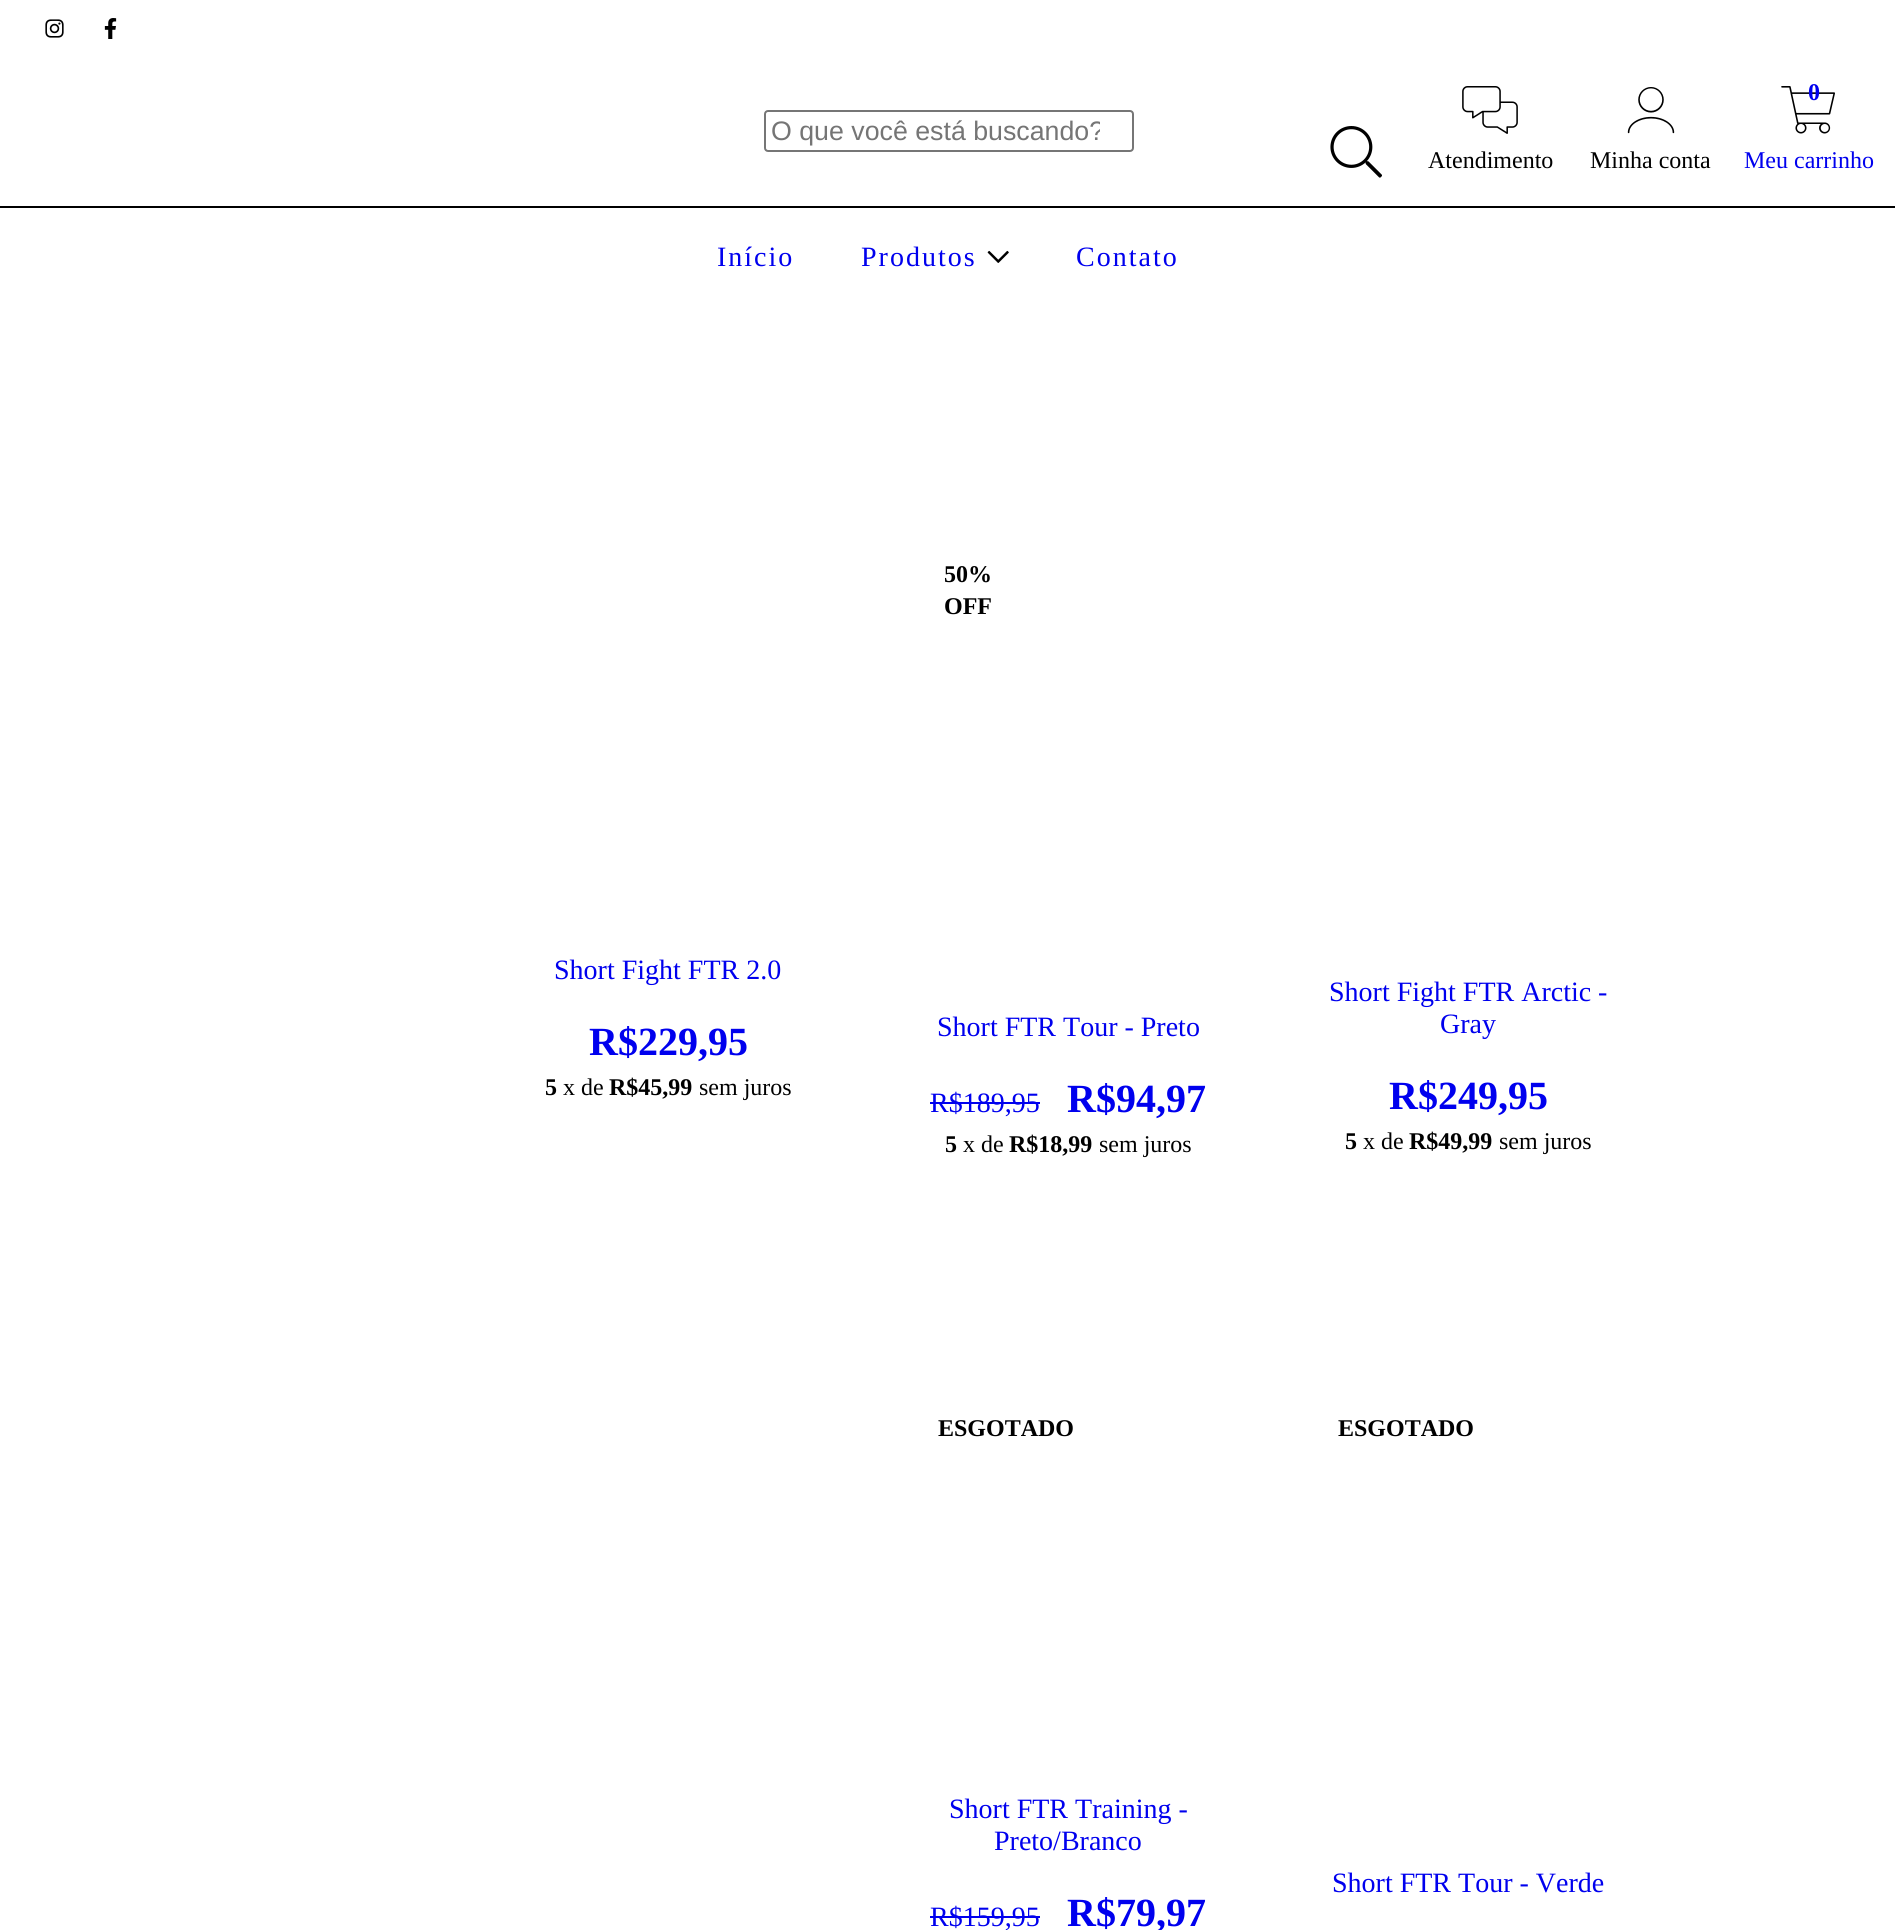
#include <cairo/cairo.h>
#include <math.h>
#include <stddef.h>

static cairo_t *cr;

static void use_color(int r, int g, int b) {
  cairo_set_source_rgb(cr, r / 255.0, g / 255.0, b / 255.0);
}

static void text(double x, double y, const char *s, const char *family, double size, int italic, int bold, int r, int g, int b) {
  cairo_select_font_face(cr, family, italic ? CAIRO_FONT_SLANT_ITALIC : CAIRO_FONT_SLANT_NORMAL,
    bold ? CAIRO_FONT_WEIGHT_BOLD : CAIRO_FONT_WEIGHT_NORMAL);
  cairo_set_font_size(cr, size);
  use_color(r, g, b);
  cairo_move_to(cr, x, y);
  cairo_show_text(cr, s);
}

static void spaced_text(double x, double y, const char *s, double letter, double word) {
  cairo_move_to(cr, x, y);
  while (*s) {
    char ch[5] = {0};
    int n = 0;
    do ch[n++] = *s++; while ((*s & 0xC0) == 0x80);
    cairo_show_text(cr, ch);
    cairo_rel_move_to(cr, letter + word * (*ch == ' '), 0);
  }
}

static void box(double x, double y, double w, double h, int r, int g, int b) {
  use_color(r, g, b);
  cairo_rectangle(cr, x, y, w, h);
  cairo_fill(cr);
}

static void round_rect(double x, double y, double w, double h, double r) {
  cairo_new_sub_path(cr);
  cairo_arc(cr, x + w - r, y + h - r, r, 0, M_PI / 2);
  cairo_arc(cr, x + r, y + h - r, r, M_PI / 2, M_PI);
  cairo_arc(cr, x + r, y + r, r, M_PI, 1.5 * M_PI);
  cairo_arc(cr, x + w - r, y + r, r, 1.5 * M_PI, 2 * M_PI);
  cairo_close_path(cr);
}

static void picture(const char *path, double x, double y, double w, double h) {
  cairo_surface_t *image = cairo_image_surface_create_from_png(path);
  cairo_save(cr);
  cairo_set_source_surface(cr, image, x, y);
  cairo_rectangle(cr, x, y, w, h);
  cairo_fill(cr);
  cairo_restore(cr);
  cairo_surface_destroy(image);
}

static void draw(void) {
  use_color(255, 255, 255);
  cairo_paint(cr);
  picture("img_01.png", 45, 19, 19, 19);
  picture("img_02.png", 104, 18, 13, 21);
  round_rect(765, 111, 368, 40, 3);
  use_color(118, 118, 118);
  cairo_stroke(cr);
  picture("img_03.png", 1330, 126, 52, 52);
  picture("img_04.png", 1462, 86, 56, 48);
  picture("img_05.png", 1627, 87, 48, 47);
  picture("img_06.png", 1781, 86, 54, 48);
  box(0, 206, 1895, 2, 0, 0, 0);
  picture("img_07.png", 987, 250, 22, 13);
  box(930, 1102, 110, 2, 0, 0, 238);
  box(930, 1916, 110, 2, 0, 0, 238);
  cairo_save(cr);
  cairo_rectangle(cr, 772, 116, 328, 30);
  cairo_clip(cr);
  text(771, 140, "O que você está buscando?", "Liberation Sans", 26.75, 0, 0, 117, 117, 117);
  cairo_restore(cr);
  text(1428, 168, "Atendimento", "Liberation Serif", 24, 0, 0, 0, 0, 0);
  text(1590, 168, "Minha conta", "Liberation Serif", 24, 0, 0, 0, 0, 0);
  text(1808, 100, "0", "Liberation Serif", 24, 0, 1, 0, 0, 238);
  text(1744, 168, "Meu carrinho", "Liberation Serif", 24, 0, 0, 0, 0, 238);
  cairo_set_font_size(cr, 28);
  spaced_text(717, 266, "Início", 2, 0);
  spaced_text(861, 266, "Produtos", 2, 0);
  spaced_text(1076, 266, "Contato", 2, 0);
  text(554, 979, "Short Fight FTR 2.0", "Liberation Serif", 28, 0, 0, 0, 0, 238);
  text(589, 1055, "R$229,95", "Liberation Serif", 40, 0, 1, 0, 0, 238);
  text(545, 1095, "5", "Liberation Serif", 24, 0, 1, 0, 0, 0);
  text(563, 1095, "x de", "Liberation Serif", 24, 0, 0, 0, 0, 0);
  text(609, 1095, "R$45,99", "Liberation Serif", 24, 0, 1, 0, 0, 0);
  text(699, 1095, "sem juros", "Liberation Serif", 24, 0, 0, 0, 0, 0);
  text(944, 582, "50%", "Liberation Serif", 24, 0, 1, 0, 0, 0);
  text(944, 614, "OFF", "Liberation Serif", 24, 0, 1, 0, 0, 0);
  text(937, 1036, "Short FTR Tour - Preto", "Liberation Serif", 28, 0, 0, 0, 0, 238);
  text(930, 1112, "R$189,95", "Liberation Serif", 28, 0, 0, 0, 0, 238);
  text(1067, 1112, "R$94,97", "Liberation Serif", 40, 0, 1, 0, 0, 238);
  text(945, 1152, "5", "Liberation Serif", 24, 0, 1, 0, 0, 0);
  text(963, 1152, "x de", "Liberation Serif", 24, 0, 0, 0, 0, 0);
  text(1009, 1152, "R$18,99", "Liberation Serif", 24, 0, 1, 0, 0, 0);
  text(1099, 1152, "sem juros", "Liberation Serif", 24, 0, 0, 0, 0, 0);
  text(1329, 1001, "Short Fight FTR Arctic -", "Liberation Serif", 28, 0, 0, 0, 0, 238);
  text(1440, 1033, "Gray", "Liberation Serif", 28, 0, 0, 0, 0, 238);
  text(1389, 1109, "R$249,95", "Liberation Serif", 40, 0, 1, 0, 0, 238);
  text(1345, 1149, "5", "Liberation Serif", 24, 0, 1, 0, 0, 0);
  text(1363, 1149, "x de", "Liberation Serif", 24, 0, 0, 0, 0, 0);
  text(1409, 1149, "R$49,99", "Liberation Serif", 24, 0, 1, 0, 0, 0);
  text(1499, 1149, "sem juros", "Liberation Serif", 24, 0, 0, 0, 0, 0);
  text(938, 1436, "ESGOTADO", "Liberation Serif", 24, 0, 1, 0, 0, 0);
  text(949, 1818, "Short FTR Training -", "Liberation Serif", 28, 0, 0, 0, 0, 238);
  text(994, 1850, "Preto/Branco", "Liberation Serif", 28, 0, 0, 0, 0, 238);
  text(930, 1926, "R$159,95", "Liberation Serif", 28, 0, 0, 0, 0, 238);
  text(1067, 1926, "R$79,97", "Liberation Serif", 40, 0, 1, 0, 0, 238);
  text(1338, 1436, "ESGOTADO", "Liberation Serif", 24, 0, 1, 0, 0, 0);
  text(1332, 1892, "Short FTR Tour - Verde", "Liberation Serif", 28, 0, 0, 0, 0, 238);
}

int main(void) {
  cairo_surface_t *surface = cairo_image_surface_create(CAIRO_FORMAT_RGB24, 1895, 1930);
  cr = cairo_create(surface);
  cairo_font_options_t *options = cairo_font_options_create();
  cairo_font_options_set_hint_metrics(options, CAIRO_HINT_METRICS_OFF);
  cairo_font_options_set_hint_style(options, CAIRO_HINT_STYLE_NONE);
  cairo_set_font_options(cr, options);
  cairo_set_miter_limit(cr, 4);
  draw();
  cairo_surface_write_to_png(surface, "out.png");
  cairo_font_options_destroy(options);
  cairo_destroy(cr);
  cairo_surface_destroy(surface);
  return 0;
}
